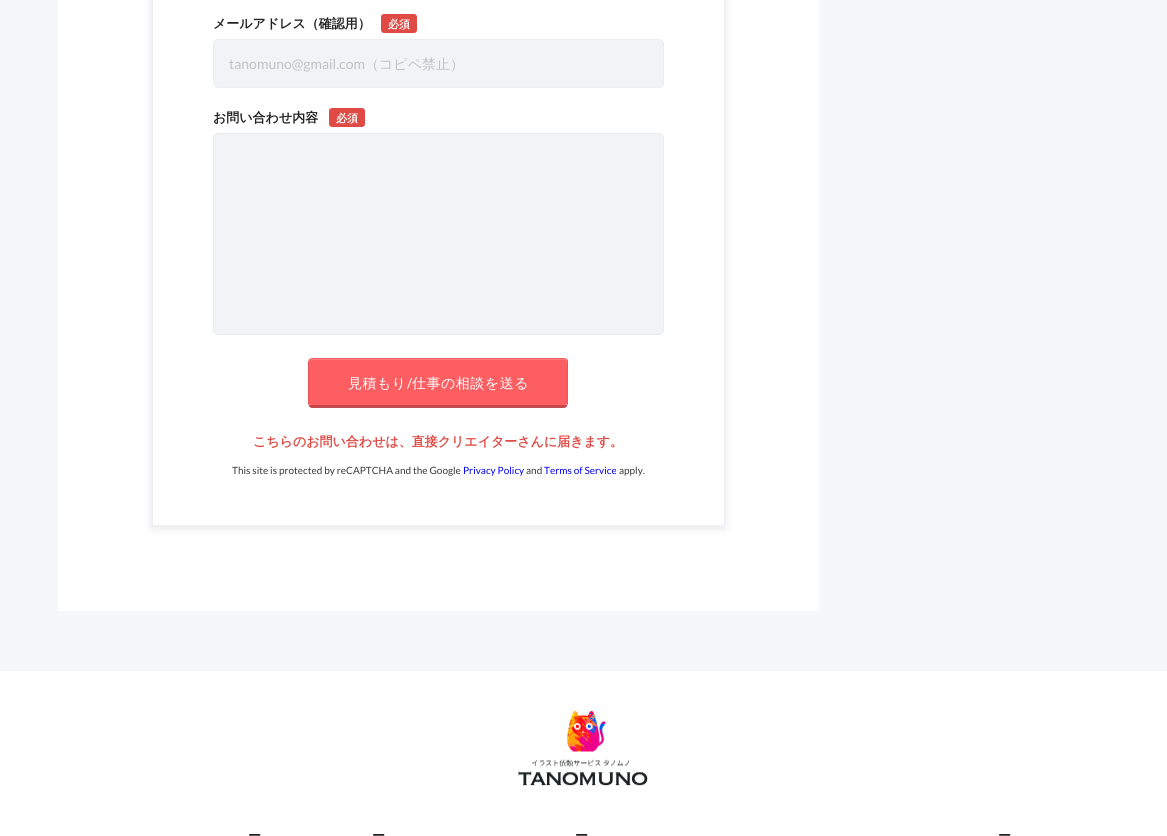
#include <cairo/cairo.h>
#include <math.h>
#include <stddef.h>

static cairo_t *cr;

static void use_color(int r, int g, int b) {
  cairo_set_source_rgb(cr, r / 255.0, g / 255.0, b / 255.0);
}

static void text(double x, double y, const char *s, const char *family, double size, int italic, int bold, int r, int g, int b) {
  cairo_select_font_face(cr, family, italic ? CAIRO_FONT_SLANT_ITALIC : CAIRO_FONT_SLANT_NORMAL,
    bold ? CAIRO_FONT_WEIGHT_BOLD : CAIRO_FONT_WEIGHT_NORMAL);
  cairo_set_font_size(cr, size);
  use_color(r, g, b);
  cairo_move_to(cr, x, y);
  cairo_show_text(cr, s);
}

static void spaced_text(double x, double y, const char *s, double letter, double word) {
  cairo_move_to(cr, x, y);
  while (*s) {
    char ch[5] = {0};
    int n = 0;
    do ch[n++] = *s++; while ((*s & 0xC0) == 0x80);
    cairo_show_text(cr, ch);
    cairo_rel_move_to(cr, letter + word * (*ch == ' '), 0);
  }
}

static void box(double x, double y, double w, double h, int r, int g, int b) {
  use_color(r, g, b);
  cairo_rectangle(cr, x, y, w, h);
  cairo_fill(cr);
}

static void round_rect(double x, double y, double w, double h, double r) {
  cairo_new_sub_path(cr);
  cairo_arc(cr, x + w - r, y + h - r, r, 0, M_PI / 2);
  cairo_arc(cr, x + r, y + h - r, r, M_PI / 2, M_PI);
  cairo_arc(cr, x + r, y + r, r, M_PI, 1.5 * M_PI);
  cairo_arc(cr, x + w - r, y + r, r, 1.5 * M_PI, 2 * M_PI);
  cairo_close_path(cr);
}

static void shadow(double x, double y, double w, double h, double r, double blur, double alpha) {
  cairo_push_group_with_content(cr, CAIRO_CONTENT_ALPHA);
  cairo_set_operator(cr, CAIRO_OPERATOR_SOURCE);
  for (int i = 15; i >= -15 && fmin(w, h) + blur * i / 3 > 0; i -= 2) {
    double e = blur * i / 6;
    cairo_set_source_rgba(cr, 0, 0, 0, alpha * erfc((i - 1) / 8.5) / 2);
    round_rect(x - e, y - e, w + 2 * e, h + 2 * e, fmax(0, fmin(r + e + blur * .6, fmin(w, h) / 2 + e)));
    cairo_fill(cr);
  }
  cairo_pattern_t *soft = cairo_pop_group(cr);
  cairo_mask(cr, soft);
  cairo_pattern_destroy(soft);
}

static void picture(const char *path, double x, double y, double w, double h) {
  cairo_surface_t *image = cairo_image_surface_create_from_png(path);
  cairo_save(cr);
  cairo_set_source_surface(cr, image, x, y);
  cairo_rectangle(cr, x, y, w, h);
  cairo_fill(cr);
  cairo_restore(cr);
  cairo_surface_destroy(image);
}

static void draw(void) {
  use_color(255, 255, 255);
  cairo_paint(cr);
  box(0, 0, 1167, 671, 245, 247, 248);
  box(58, 0, 761, 611, 255, 255, 255);
  cairo_save(cr);
  cairo_set_fill_rule(cr, CAIRO_FILL_RULE_EVEN_ODD);
  cairo_new_path(cr);
  cairo_move_to(cr, 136, 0);
  cairo_line_to(cr, 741, 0);
  cairo_line_to(cr, 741, 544);
  cairo_line_to(cr, 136, 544);
  cairo_close_path(cr);
  cairo_move_to(cr, 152, -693);
  cairo_line_to(cr, 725, -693);
  cairo_line_to(cr, 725, 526);
  cairo_line_to(cr, 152, 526);
  cairo_close_path(cr);
  cairo_clip(cr);
  use_color(0, 0, 0);
  shadow(152, -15, 573, 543, 0, 5, 0.1);
  cairo_restore(cr);
  cairo_rectangle(cr, 152.5, -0.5, 572, 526);
  use_color(237, 239, 244);
  cairo_set_line_width(cr, 1);
  cairo_stroke(cr);
  use_color(224, 74, 68);
  round_rect(381, 14, 36, 19, 3);
  cairo_fill(cr);
  use_color(241, 243, 247);
  round_rect(213.5, 39.5, 450, 48, 4.5);
  cairo_fill_preserve(cr);
  use_color(235, 237, 240);
  cairo_stroke(cr);
  use_color(224, 74, 68);
  round_rect(329, 108, 36, 19, 3);
  cairo_fill(cr);
  use_color(241, 243, 247);
  round_rect(213.5, 133.5, 450, 201, 4.5);
  cairo_fill_preserve(cr);
  use_color(235, 237, 240);
  cairo_stroke(cr);
  use_color(253, 94, 98);
  cairo_new_path(cr);
  cairo_move_to(cr, 312, 359);
  cairo_line_to(cr, 564, 359);
  cairo_curve_to(cr, 566, 359, 567, 360, 567, 362);
  cairo_line_to(cr, 567, 404);
  cairo_curve_to(cr, 567, 405, 566, 405, 564, 405);
  cairo_line_to(cr, 312, 405);
  cairo_curve_to(cr, 310, 405, 309, 405, 309, 404);
  cairo_line_to(cr, 309, 362);
  cairo_curve_to(cr, 309, 360, 310, 359, 312, 359);
  cairo_close_path(cr);
  cairo_fill(cr);
  cairo_set_source_rgba(cr, 1, 1, 1, 0.2);
  cairo_new_path(cr);
  cairo_move_to(cr, 312, 360);
  cairo_line_to(cr, 565, 360);
  cairo_line_to(cr, 567, 361);
  cairo_line_to(cr, 567, 363);
  cairo_line_to(cr, 567, 362);
  cairo_curve_to(cr, 567, 360, 566, 359, 564, 359);
  cairo_line_to(cr, 312, 359);
  cairo_curve_to(cr, 310, 359, 309, 360, 309, 362);
  cairo_line_to(cr, 309, 363);
  cairo_curve_to(cr, 309, 361, 310, 360, 312, 360);
  cairo_close_path(cr);
  cairo_fill(cr);
  use_color(244, 91, 94);
  cairo_new_path(cr);
  cairo_move_to(cr, 312, 358);
  cairo_line_to(cr, 309, 359);
  cairo_line_to(cr, 310, 360);
  cairo_line_to(cr, 312, 359);
  cairo_line_to(cr, 564, 359);
  cairo_line_to(cr, 566, 360);
  cairo_line_to(cr, 567, 359);
  cairo_line_to(cr, 564, 358);
  cairo_close_path(cr);
  cairo_fill(cr);
  use_color(230, 87, 90);
  cairo_new_path(cr);
  cairo_move_to(cr, 568, 404);
  cairo_line_to(cr, 568, 362);
  cairo_curve_to(cr, 568, 361, 568, 360, 567, 359);
  cairo_line_to(cr, 566, 360);
  cairo_line_to(cr, 567, 362);
  cairo_line_to(cr, 567, 405);
  cairo_line_to(cr, 567, 406);
  cairo_close_path(cr);
  cairo_fill(cr);
  use_color(195, 73, 77);
  cairo_new_path(cr);
  cairo_move_to(cr, 312, 408);
  cairo_line_to(cr, 564, 408);
  cairo_curve_to(cr, 565, 408, 567, 407, 567, 406);
  cairo_line_to(cr, 567, 405);
  cairo_line_to(cr, 564, 405);
  cairo_line_to(cr, 312, 405);
  cairo_line_to(cr, 309, 405);
  cairo_line_to(cr, 309, 406);
  cairo_curve_to(cr, 309, 407, 311, 408, 312, 408);
  cairo_close_path(cr);
  cairo_fill(cr);
  use_color(230, 87, 90);
  cairo_new_path(cr);
  cairo_move_to(cr, 308, 362);
  cairo_line_to(cr, 308, 404);
  cairo_line_to(cr, 309, 406);
  cairo_line_to(cr, 309, 405);
  cairo_line_to(cr, 309, 362);
  cairo_line_to(cr, 310, 360);
  cairo_line_to(cr, 309, 359);
  cairo_close_path(cr);
  cairo_fill(cr);
  picture("img_01.png", 518, 711, 130, 75);
  text(213, 28, "メールアドレス（確認用）", "WenQuanYi Zen Hei", 13, 0, 1, 33, 33, 33);
  text(388, 28, "必須", "WenQuanYi Zen Hei", 11, 0, 1, 255, 255, 255);
  text(229, 69, "tanomuno@gmail.com", "Lato", 14, 0, 0, 193, 194, 198);
  text(365, 69, "（コピペ禁止）", "WenQuanYi Zen Hei Medium", 14, 0, 0, 193, 194, 198);
  text(213, 122, "お問い合わせ内容", "WenQuanYi Zen Hei", 13, 0, 1, 33, 33, 33);
  text(336, 122, "必須", "WenQuanYi Zen Hei", 11, 0, 1, 255, 255, 255);
  cairo_select_font_face(cr, "WenQuanYi Zen Hei Medium", CAIRO_FONT_SLANT_NORMAL, CAIRO_FONT_WEIGHT_NORMAL);
  cairo_set_font_size(cr, 14);
  spaced_text(348, 388, "見積もり", 0.5, 0);
  cairo_select_font_face(cr, "Lato", CAIRO_FONT_SLANT_NORMAL, CAIRO_FONT_WEIGHT_NORMAL);
  spaced_text(407, 388, "/", 0.5, 0);
  cairo_select_font_face(cr, "WenQuanYi Zen Hei Medium", CAIRO_FONT_SLANT_NORMAL, CAIRO_FONT_WEIGHT_NORMAL);
  spaced_text(412, 388, "仕事の相談を送る", 0.5, 0);
  text(253, 446, "こちらのお問い合わせは、直接クリエイターさんに届きます。", "WenQuanYi Zen Hei", 13, 0, 1, 224, 74, 68);
  text(232, 474, "This site is protected by reCAPTCHA and the Google", "Lato", 10, 0, 0, 54, 56, 57);
  text(463, 474, "Privacy Policy", "Lato", 10, 0, 0, 0, 0, 238);
  text(526, 474, "and", "Lato", 10, 0, 0, 54, 56, 57);
  text(544, 474, "Terms of Service", "Lato", 10, 0, 0, 0, 0, 238);
  text(619, 474, "apply.", "Lato", 10, 0, 0, 54, 56, 57);
  text(248, 840, "ー", "WenQuanYi Zen Hei", 13, 0, 1, 33, 33, 33);
  text(372, 840, "ー", "WenQuanYi Zen Hei", 13, 0, 1, 33, 33, 33);
  text(575, 840, "ー", "WenQuanYi Zen Hei", 13, 0, 1, 33, 33, 33);
  text(998, 840, "ー", "WenQuanYi Zen Hei", 13, 0, 1, 33, 33, 33);
}

int main(void) {
  cairo_surface_t *surface = cairo_image_surface_create(CAIRO_FORMAT_RGB24, 1167, 836);
  cr = cairo_create(surface);
  cairo_font_options_t *options = cairo_font_options_create();
  cairo_font_options_set_hint_metrics(options, CAIRO_HINT_METRICS_OFF);
  cairo_font_options_set_hint_style(options, CAIRO_HINT_STYLE_NONE);
  cairo_set_font_options(cr, options);
  cairo_set_miter_limit(cr, 4);
  draw();
  cairo_surface_write_to_png(surface, "out.png");
  cairo_font_options_destroy(options);
  cairo_destroy(cr);
  cairo_surface_destroy(surface);
  return 0;
}
